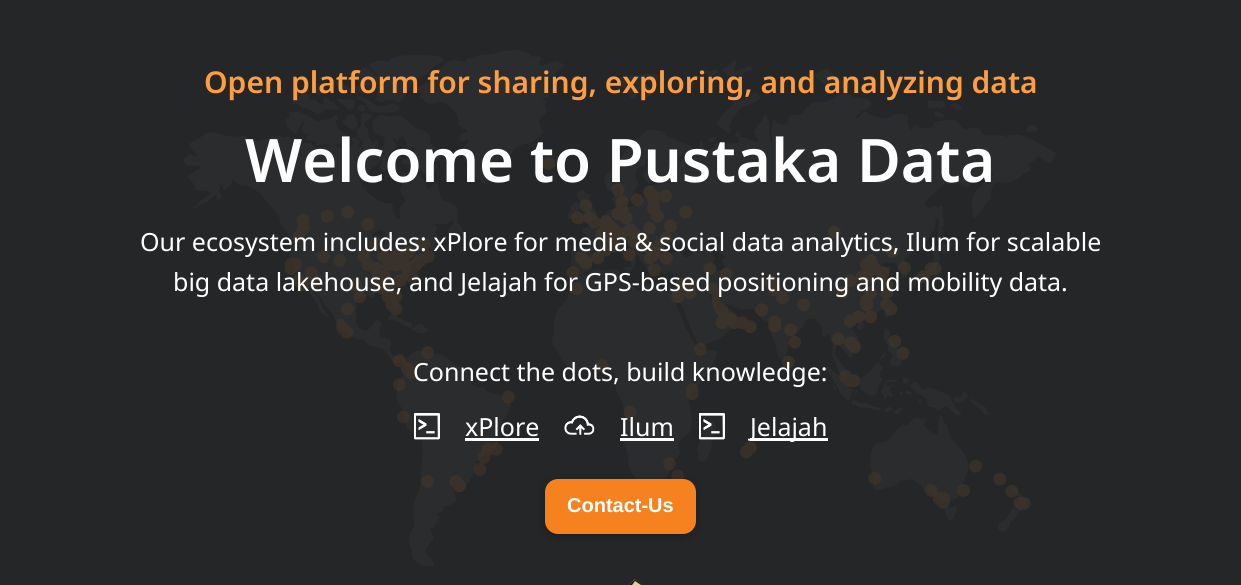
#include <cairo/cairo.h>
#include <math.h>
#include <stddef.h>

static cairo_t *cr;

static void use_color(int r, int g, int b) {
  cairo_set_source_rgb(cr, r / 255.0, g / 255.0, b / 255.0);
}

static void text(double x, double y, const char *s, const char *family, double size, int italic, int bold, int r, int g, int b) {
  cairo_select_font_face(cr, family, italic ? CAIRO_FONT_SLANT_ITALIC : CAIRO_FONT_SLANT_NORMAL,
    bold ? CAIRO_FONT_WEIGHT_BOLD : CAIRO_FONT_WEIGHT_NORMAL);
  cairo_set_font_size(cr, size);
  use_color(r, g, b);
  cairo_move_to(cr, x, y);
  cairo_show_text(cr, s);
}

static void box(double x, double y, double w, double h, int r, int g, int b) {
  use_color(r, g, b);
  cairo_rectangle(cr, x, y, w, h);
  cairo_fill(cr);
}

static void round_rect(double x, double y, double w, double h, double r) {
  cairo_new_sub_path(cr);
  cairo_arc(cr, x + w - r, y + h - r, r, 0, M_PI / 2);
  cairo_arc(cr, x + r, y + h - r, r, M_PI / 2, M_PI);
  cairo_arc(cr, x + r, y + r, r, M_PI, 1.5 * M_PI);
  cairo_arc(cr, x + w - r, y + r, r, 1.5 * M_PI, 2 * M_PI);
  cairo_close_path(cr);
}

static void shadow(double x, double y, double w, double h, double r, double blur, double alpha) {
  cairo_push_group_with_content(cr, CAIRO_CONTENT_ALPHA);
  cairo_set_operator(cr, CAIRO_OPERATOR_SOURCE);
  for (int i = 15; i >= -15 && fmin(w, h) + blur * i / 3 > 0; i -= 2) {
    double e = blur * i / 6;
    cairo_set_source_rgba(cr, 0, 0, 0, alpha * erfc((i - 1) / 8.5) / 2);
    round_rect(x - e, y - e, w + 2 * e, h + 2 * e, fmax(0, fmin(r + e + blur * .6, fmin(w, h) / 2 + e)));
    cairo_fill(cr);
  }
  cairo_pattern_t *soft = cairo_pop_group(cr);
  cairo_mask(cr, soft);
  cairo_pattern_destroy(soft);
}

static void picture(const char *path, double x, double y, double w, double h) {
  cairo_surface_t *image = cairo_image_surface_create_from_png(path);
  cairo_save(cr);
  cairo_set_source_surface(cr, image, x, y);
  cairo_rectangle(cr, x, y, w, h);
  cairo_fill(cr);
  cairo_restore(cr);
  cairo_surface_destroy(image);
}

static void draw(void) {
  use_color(36, 38, 40);
  cairo_paint(cr);
  picture("img_01.png", 184, 50, 873, 516);
  picture("img_02.png", 414, 413, 26, 27);
  box(465, 438, 74, 3, 255, 255, 255);
  picture("img_03.png", 564, 415, 31, 20);
  box(620, 438, 54, 3, 255, 255, 255);
  picture("img_04.png", 699, 413, 26, 27);
  box(750, 438, 78, 3, 255, 255, 255);
  use_color(0, 0, 0);
  shadow(545, 481, 151, 55, 13, 5, 0.25);
  use_color(246, 130, 31);
  round_rect(545, 479, 151, 55, 13);
  cairo_fill(cr);
  picture("img_05.png", 628, 579, 15, 6);
  text(204, 93, "Open platform for sharing, exploring, and analyzing data", "Noto Sans SemiBold", 30, 0, 0, 255, 158, 64);
  text(245, 182, "Welcome to Pustaka Data", "Noto Sans SemiBold", 60, 0, 0, 255, 255, 255);
  text(140, 251, "Our ecosystem includes: xPlore for media & social data analytics, Ilum for scalable", "Noto Sans", 25, 0, 0, 255, 255, 255);
  text(173, 291, "big data lakehouse, and Jelajah for GPS-based positioning and mobility data.", "Noto Sans", 25, 0, 0, 255, 255, 255);
  text(413, 381, "Connect the dots, build knowledge:", "Noto Sans", 25, 0, 0, 255, 255, 255);
  text(465, 436, "xPlore", "Noto Sans", 25, 0, 0, 255, 255, 255);
  text(620, 436, "Ilum", "Noto Sans", 25, 0, 0, 255, 255, 255);
  text(750, 436, "Jelajah", "Noto Sans", 25, 0, 0, 255, 255, 255);
  text(567, 512, "Contact-Us", "Liberation Sans", 20, 0, 1, 255, 255, 255);
}

int main(void) {
  cairo_surface_t *surface = cairo_image_surface_create(CAIRO_FORMAT_RGB24, 1241, 585);
  cr = cairo_create(surface);
  cairo_font_options_t *options = cairo_font_options_create();
  cairo_font_options_set_hint_metrics(options, CAIRO_HINT_METRICS_OFF);
  cairo_font_options_set_hint_style(options, CAIRO_HINT_STYLE_NONE);
  cairo_set_font_options(cr, options);
  cairo_set_miter_limit(cr, 4);
  draw();
  cairo_surface_write_to_png(surface, "out.png");
  cairo_font_options_destroy(options);
  cairo_destroy(cr);
  cairo_surface_destroy(surface);
  return 0;
}
